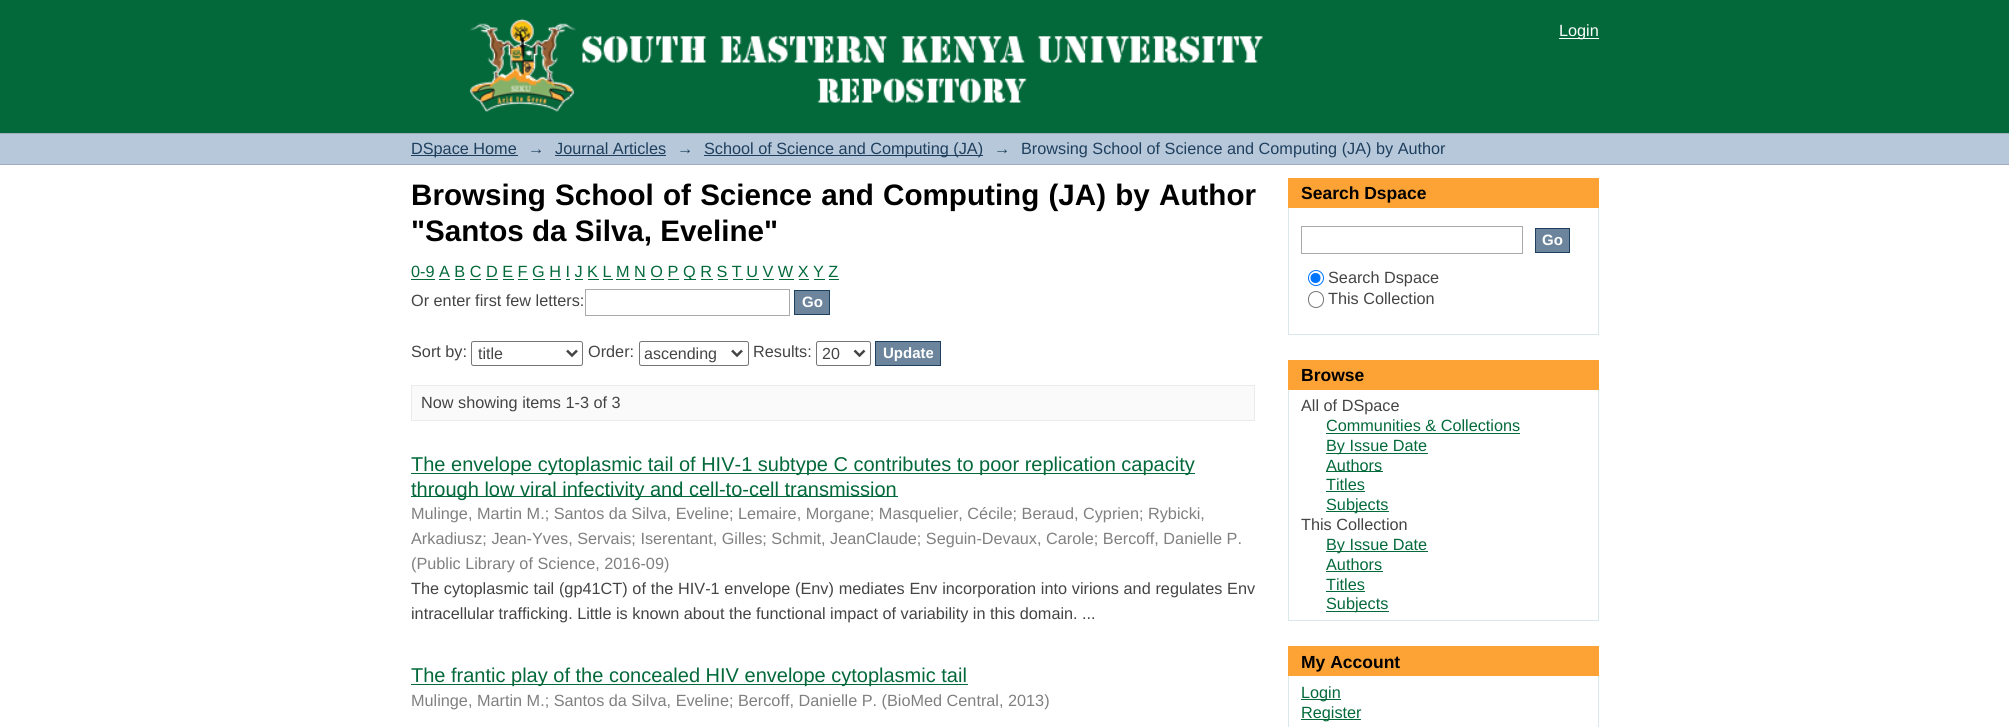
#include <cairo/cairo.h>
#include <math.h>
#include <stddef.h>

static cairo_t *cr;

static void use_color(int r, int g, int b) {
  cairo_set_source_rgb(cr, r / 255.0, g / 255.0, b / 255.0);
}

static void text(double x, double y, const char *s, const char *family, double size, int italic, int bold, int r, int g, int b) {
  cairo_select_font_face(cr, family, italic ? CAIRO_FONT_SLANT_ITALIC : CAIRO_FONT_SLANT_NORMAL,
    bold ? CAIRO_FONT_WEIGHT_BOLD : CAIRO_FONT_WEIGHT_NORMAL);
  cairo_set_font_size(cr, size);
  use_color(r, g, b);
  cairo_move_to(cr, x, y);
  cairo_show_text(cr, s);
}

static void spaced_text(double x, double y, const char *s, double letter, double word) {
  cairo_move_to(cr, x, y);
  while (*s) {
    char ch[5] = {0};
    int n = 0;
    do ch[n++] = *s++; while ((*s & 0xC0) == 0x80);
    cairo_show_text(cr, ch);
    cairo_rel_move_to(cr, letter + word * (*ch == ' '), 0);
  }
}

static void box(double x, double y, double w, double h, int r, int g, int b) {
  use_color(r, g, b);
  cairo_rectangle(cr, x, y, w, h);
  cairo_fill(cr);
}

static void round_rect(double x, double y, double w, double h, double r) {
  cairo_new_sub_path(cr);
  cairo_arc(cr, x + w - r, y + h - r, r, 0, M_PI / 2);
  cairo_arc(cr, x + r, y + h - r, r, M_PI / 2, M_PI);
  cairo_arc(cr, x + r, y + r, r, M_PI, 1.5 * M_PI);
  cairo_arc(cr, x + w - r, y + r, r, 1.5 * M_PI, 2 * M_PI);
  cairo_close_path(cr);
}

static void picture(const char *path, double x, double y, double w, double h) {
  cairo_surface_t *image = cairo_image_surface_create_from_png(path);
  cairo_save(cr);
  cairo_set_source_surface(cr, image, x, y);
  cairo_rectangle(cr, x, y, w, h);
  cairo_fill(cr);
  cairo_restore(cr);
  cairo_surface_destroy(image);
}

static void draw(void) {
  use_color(255, 255, 255);
  cairo_paint(cr);
  box(0, 0, 2009, 133, 3, 105, 58);
  picture("img_01.png", 469, 18, 794, 94);
  box(1559, 38, 40, 1, 255, 255, 255);
  box(0, 134, 2009, 30, 182, 200, 217);
  box(0, 133, 2009, 1, 156, 172, 186);
  box(0, 164, 2009, 1, 156, 172, 186);
  box(411, 155, 107, 1, 31, 63, 94);
  box(555, 155, 111, 1, 31, 63, 94);
  box(704, 155, 279, 1, 31, 63, 94);
  box(411, 279, 24, 1, 3, 105, 58);
  box(684, 279, 12, 1, 3, 105, 58);
  box(439, 279, 11, 1, 3, 105, 58);
  box(455, 279, 10, 1, 3, 105, 58);
  box(470, 279, 11, 1, 3, 105, 58);
  box(486, 279, 12, 1, 3, 105, 58);
  box(503, 279, 11, 1, 3, 105, 58);
  box(518, 279, 10, 1, 3, 105, 58);
  box(533, 279, 12, 1, 3, 105, 58);
  box(550, 279, 11, 1, 3, 105, 58);
  box(566, 279, 4, 1, 3, 105, 58);
  box(575, 279, 8, 1, 3, 105, 58);
  box(588, 279, 11, 1, 3, 105, 58);
  box(603, 279, 10, 1, 3, 105, 58);
  box(616, 279, 14, 1, 3, 105, 58);
  box(635, 279, 11, 1, 3, 105, 58);
  box(651, 279, 13, 1, 3, 105, 58);
  box(668, 279, 11, 1, 3, 105, 58);
  box(701, 279, 12, 1, 3, 105, 58);
  box(718, 279, 10, 1, 3, 105, 58);
  box(733, 279, 10, 1, 3, 105, 58);
  box(746, 279, 13, 1, 3, 105, 58);
  box(763, 279, 11, 1, 3, 105, 58);
  box(779, 279, 15, 1, 3, 105, 58);
  box(799, 279, 10, 1, 3, 105, 58);
  box(814, 279, 11, 1, 3, 105, 58);
  box(829, 279, 10, 1, 3, 105, 58);
  cairo_rectangle(cr, 585.5, 289.5, 204, 26);
  use_color(170, 170, 170);
  cairo_set_line_width(cr, 1);
  cairo_stroke(cr);
  use_color(109, 133, 156);
  cairo_rectangle(cr, 794.5, 290.5, 35, 24);
  cairo_fill_preserve(cr);
  use_color(31, 63, 94);
  cairo_stroke(cr);
  round_rect(471.5, 341.5, 111, 24, 2);
  use_color(118, 118, 118);
  cairo_stroke(cr);
  cairo_new_path(cr);
  cairo_move_to(cr, 567, 350.5);
  cairo_line_to(cr, 572, 355.5);
  cairo_line_to(cr, 577, 350.5);
  use_color(68, 68, 68);
  cairo_set_line_width(cr, 2.5);
  cairo_stroke(cr);
  round_rect(639.5, 341.5, 109, 24, 2);
  use_color(118, 118, 118);
  cairo_set_line_width(cr, 1);
  cairo_stroke(cr);
  cairo_new_path(cr);
  cairo_move_to(cr, 732, 350.5);
  cairo_line_to(cr, 737, 355.5);
  cairo_line_to(cr, 742, 350.5);
  use_color(68, 68, 68);
  cairo_set_line_width(cr, 2.5);
  cairo_stroke(cr);
  round_rect(816.5, 341.5, 54, 24, 2);
  use_color(118, 118, 118);
  cairo_set_line_width(cr, 1);
  cairo_stroke(cr);
  cairo_new_path(cr);
  cairo_move_to(cr, 854.5, 350.5);
  cairo_line_to(cr, 859.5, 355.5);
  cairo_line_to(cr, 864.5, 350.5);
  use_color(68, 68, 68);
  cairo_set_line_width(cr, 2.5);
  cairo_stroke(cr);
  use_color(109, 133, 156);
  cairo_rectangle(cr, 875.5, 341.5, 65, 24);
  cairo_fill_preserve(cr);
  use_color(31, 63, 94);
  cairo_set_line_width(cr, 1);
  cairo_stroke(cr);
  use_color(250, 250, 250);
  cairo_rectangle(cr, 411.5, 385.5, 843, 35);
  cairo_fill_preserve(cr);
  use_color(235, 235, 235);
  cairo_stroke(cr);
  box(411, 473, 784, 1, 3, 105, 58);
  box(411, 496, 487, 1, 3, 105, 58);
  box(411, 684, 557, 1, 3, 105, 58);
  box(1288, 178, 311, 30, 253, 163, 54);
  box(1598, 208, 1, 127, 216, 232, 235);
  box(1288, 334, 311, 1, 216, 232, 235);
  box(1288, 208, 1, 127, 216, 232, 235);
  cairo_rectangle(cr, 1301.5, 226.5, 221, 27);
  use_color(170, 170, 170);
  cairo_stroke(cr);
  use_color(109, 133, 156);
  cairo_rectangle(cr, 1535.5, 228.5, 34, 24);
  cairo_fill_preserve(cr);
  use_color(31, 63, 94);
  cairo_stroke(cr);
  cairo_arc(cr, 1316, 278, 7.5, 0, 2 * M_PI);
  use_color(0, 117, 255);
  cairo_stroke(cr);
  cairo_arc(cr, 1315.5, 278, 5, 0, 2 * M_PI);
  cairo_fill(cr);
  round_rect(1308.5, 291.5, 15, 16, 7.5);
  use_color(118, 118, 118);
  cairo_stroke(cr);
  box(1288, 360, 311, 30, 253, 163, 54);
  box(1598, 390, 1, 231, 216, 232, 235);
  box(1288, 620, 311, 1, 216, 232, 235);
  box(1288, 390, 1, 231, 216, 232, 235);
  box(1326, 433, 194, 1, 3, 105, 58);
  box(1326, 453, 102, 1, 3, 105, 58);
  box(1326, 471, 57, 1, 3, 105, 58);
  box(1326, 491, 39, 1, 3, 105, 58);
  box(1326, 511, 63, 1, 3, 105, 58);
  box(1326, 551, 102, 1, 3, 105, 58);
  box(1326, 571, 57, 1, 3, 105, 58);
  box(1326, 591, 39, 1, 3, 105, 58);
  box(1326, 611, 63, 1, 3, 105, 58);
  box(1288, 646, 311, 30, 253, 163, 54);
  box(1598, 676, 1, 51, 216, 232, 235);
  box(1288, 676, 1, 51, 216, 232, 235);
  box(1301, 699, 40, 1, 3, 105, 58);
  box(1301, 719, 60, 1, 3, 105, 58);
  text(1559, 36, "Login", "Liberation Sans", 16.25, 0, 0, 255, 255, 255);
  text(411, 154, "DSpace Home", "Liberation Sans", 16.25, 0, 0, 31, 63, 94);
  text(528, 154, "→", "Liberation Sans", 16.25, 0, 0, 31, 63, 94);
  text(555, 154, "Journal Articles", "Liberation Sans", 16.25, 0, 0, 31, 63, 94);
  text(677, 154, "→", "Liberation Sans", 16.25, 0, 0, 31, 63, 94);
  text(704, 154, "School of Science and Computing (JA)", "Liberation Sans", 16.25, 0, 0, 31, 63, 94);
  text(994, 154, "→", "Liberation Sans", 16.25, 0, 0, 31, 63, 94);
  text(1021, 154, "Browsing School of Science and Computing (JA) by Author", "Liberation Sans", 16.25, 0, 0, 31, 63, 94);
  cairo_select_font_face(cr, "Liberation Sans", CAIRO_FONT_SLANT_NORMAL, CAIRO_FONT_WEIGHT_BOLD);
  cairo_set_font_size(cr, 29.6);
  use_color(0, 0, 0);
  spaced_text(411, 205, "Browsing School of Science and Computing (JA) by Author", 0, 1);
  text(411, 241, "\"Santos da Silva, Eveline\"", "Liberation Sans", 29.6, 0, 1, 0, 0, 0);
  text(411, 277, "0-9 A B C D E F G H I J K L M N O P", "Liberation Sans", 16.25, 0, 0, 3, 105, 58);
  text(683, 277, "Q R S T U V W X Y Z", "Liberation Sans", 16.25, 0, 0, 3, 105, 58);
  text(411, 306, "Or enter first few letters:", "Liberation Sans", 16.25, 0, 0, 68, 68, 68);
  text(802, 307, "Go", "Liberation Sans", 15, 0, 1, 255, 255, 255);
  text(411, 357, "Sort by:", "Liberation Sans", 16.25, 0, 0, 68, 68, 68);
  text(478, 359, "title", "Liberation Sans", 16, 0, 0, 68, 68, 68);
  text(588, 357, "Order:", "Liberation Sans", 16.25, 0, 0, 68, 68, 68);
  text(644, 359, "ascending", "Liberation Sans", 16, 0, 0, 68, 68, 68);
  text(753, 357, "Results:", "Liberation Sans", 16.25, 0, 0, 68, 68, 68);
  text(822, 359, "20", "Liberation Sans", 16, 0, 0, 68, 68, 68);
  text(883, 358, "Update", "Liberation Sans", 15, 0, 1, 255, 255, 255);
  text(421, 408, "Now showing items 1-3 of 3", "Liberation Sans", 16.25, 0, 0, 68, 68, 68);
  text(411, 471, "The envelope cytoplasmic tail of HIV-1 subtype C contributes to poor replication capacity", "Liberation Sans", 20, 0, 0, 3, 105, 58);
  text(411, 496, "through low viral infectivity and cell-to-cell transmission", "Liberation Sans", 20, 0, 0, 3, 105, 58);
  text(411, 519, "Mulinge, Martin M.; Santos da Silva, Eveline; Lemaire, Morgane; Masquelier, Cécile; Beraud, Cyprien; Rybicki,", "Liberation Sans", 16.25, 0, 0, 128, 128, 128);
  text(411, 544, "Arkadiusz; Jean-Yves, Servais; Iserentant, Gilles; Schmit, JeanClaude; Seguin-Devaux, Carole; Bercoff, Danielle P.", "Liberation Sans", 16.25, 0, 0, 128, 128, 128);
  text(411, 569, "(Public Library of Science, 2016-09)", "Liberation Sans", 16.25, 0, 0, 128, 128, 128);
  use_color(68, 68, 68);
  spaced_text(411, 594, "The cytoplasmic tail (gp41CT) of the HIV-1 envelope (Env) mediates Env incorporation into virions and regulates Env", 0, 0.25);
  text(411, 619, "intracellular trafficking. Little is known about the functional impact of variability in this domain. ...", "Liberation Sans", 16.25, 0, 0, 68, 68, 68);
  text(411, 682, "The frantic play of the concealed HIV envelope cytoplasmic tail", "Liberation Sans", 20, 0, 0, 3, 105, 58);
  text(411, 706, "Mulinge, Martin M.; Santos da Silva, Eveline; Bercoff, Danielle P. (BioMed Central, 2013)", "Liberation Sans", 16.25, 0, 0, 128, 128, 128);
  text(1301, 199, "Search Dspace", "Liberation Sans", 17.5, 0, 1, 0, 0, 0);
  text(1542, 245, "Go", "Liberation Sans", 15, 0, 1, 255, 255, 255);
  text(1328, 283, "Search Dspace", "Liberation Sans", 16.25, 0, 0, 68, 68, 68);
  text(1328, 304, "This Collection", "Liberation Sans", 16.25, 0, 0, 68, 68, 68);
  text(1301, 381, "Browse", "Liberation Sans", 17.5, 0, 1, 0, 0, 0);
  text(1301, 411, "All of DSpace", "Liberation Sans", 16.25, 0, 0, 68, 68, 68);
  text(1326, 431, "Communities & Collections", "Liberation Sans", 16.25, 0, 0, 3, 105, 58);
  text(1326, 451, "By Issue Date", "Liberation Sans", 16.25, 0, 0, 3, 105, 58);
  text(1326, 471, "Authors", "Liberation Sans", 16.25, 0, 0, 3, 105, 58);
  text(1326, 490, "Titles", "Liberation Sans", 16.25, 0, 0, 3, 105, 58);
  text(1326, 510, "Subjects", "Liberation Sans", 16.25, 0, 0, 3, 105, 58);
  text(1301, 530, "This Collection", "Liberation Sans", 16.25, 0, 0, 68, 68, 68);
  text(1326, 550, "By Issue Date", "Liberation Sans", 16.25, 0, 0, 3, 105, 58);
  text(1326, 570, "Authors", "Liberation Sans", 16.25, 0, 0, 3, 105, 58);
  text(1326, 590, "Titles", "Liberation Sans", 16.25, 0, 0, 3, 105, 58);
  text(1326, 609, "Subjects", "Liberation Sans", 16.25, 0, 0, 3, 105, 58);
  text(1301, 668, "My Account", "Liberation Sans", 17.5, 0, 1, 0, 0, 0);
  text(1301, 698, "Login", "Liberation Sans", 16.25, 0, 0, 3, 105, 58);
  text(1301, 718, "Register", "Liberation Sans", 16.25, 0, 0, 3, 105, 58);
}

int main(void) {
  cairo_surface_t *surface = cairo_image_surface_create(CAIRO_FORMAT_RGB24, 2009, 727);
  cr = cairo_create(surface);
  cairo_font_options_t *options = cairo_font_options_create();
  cairo_font_options_set_hint_metrics(options, CAIRO_HINT_METRICS_OFF);
  cairo_font_options_set_hint_style(options, CAIRO_HINT_STYLE_NONE);
  cairo_set_font_options(cr, options);
  cairo_set_miter_limit(cr, 4);
  draw();
  cairo_surface_write_to_png(surface, "out.png");
  cairo_font_options_destroy(options);
  cairo_destroy(cr);
  cairo_surface_destroy(surface);
  return 0;
}
